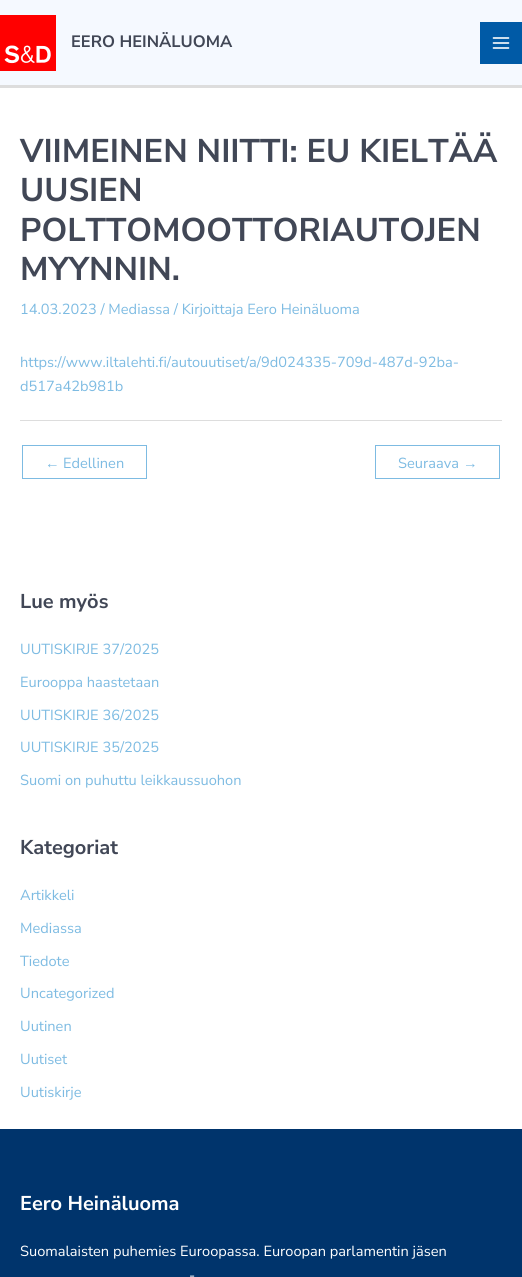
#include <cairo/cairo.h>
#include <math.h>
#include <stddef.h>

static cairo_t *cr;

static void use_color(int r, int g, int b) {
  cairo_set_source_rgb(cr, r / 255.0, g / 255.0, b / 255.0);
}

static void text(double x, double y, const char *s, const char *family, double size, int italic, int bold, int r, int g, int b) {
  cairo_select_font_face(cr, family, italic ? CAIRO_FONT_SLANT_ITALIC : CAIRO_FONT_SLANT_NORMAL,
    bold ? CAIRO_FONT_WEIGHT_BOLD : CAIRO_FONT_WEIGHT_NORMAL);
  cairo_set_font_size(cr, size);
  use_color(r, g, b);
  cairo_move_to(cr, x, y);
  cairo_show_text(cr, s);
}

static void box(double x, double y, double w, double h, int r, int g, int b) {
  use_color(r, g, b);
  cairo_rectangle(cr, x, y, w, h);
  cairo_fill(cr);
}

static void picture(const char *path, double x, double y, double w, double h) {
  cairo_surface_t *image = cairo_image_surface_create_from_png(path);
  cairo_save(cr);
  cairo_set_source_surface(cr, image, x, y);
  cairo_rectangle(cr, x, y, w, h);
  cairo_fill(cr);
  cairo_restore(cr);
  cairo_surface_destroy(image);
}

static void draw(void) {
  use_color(255, 255, 255);
  cairo_paint(cr);
  box(0, 0, 522, 85, 245, 249, 255);
  box(0, 85, 522, 3, 221, 221, 221);
  picture("img_01.png", 0, 15, 56, 56);
  box(480, 22, 42, 42, 0, 90, 166);
  picture("img_02.png", 492, 37, 18, 12);
  box(20, 420, 482, 1, 221, 221, 221);
  cairo_rectangle(cr, 22.5, 445.5, 124, 33);
  use_color(125, 187, 226);
  cairo_set_line_width(cr, 1);
  cairo_stroke(cr);
  cairo_rectangle(cr, 375.5, 445.5, 124, 33);
  cairo_stroke(cr);
  box(0, 1129, 522, 148, 0, 52, 108);
  text(71, 47, "EERO HEINÄLUOMA", "Nunito Sans", 16.5, 0, 1, 65, 71, 86);
  text(20, 162, "VIIMEINEN NIITTI: EU KIELTÄÄ", "Nunito Sans", 32.8, 0, 1, 65, 71, 86);
  text(20, 201, "UUSIEN", "Nunito Sans", 32.8, 0, 1, 65, 71, 86);
  text(20, 241, "POLTTOMOOTTORIAUTOJEN", "Nunito Sans", 32.8, 0, 1, 65, 71, 86);
  text(20, 280, "MYYNNIN.", "Nunito Sans", 32.8, 0, 1, 65, 71, 86);
  text(20, 314, "14.03.2023 / Mediassa / Kirjoittaja Eero Heinäluoma", "Nunito Sans", 14.6, 0, 0, 125, 187, 226);
  text(20, 367, "https://www.iltalehti.fi/autouutiset/a/9d024335-709d-487d-92ba-", "Nunito Sans", 14.6, 0, 0, 125, 187, 226);
  text(20, 391, "d517a42b981b", "Nunito Sans", 14.6, 0, 0, 125, 187, 226);
  text(45, 468, "←", "Liberation Sans", 14.6, 0, 0, 125, 187, 226);
  text(63, 468, "Edellinen", "Nunito Sans", 14.6, 0, 0, 125, 187, 226);
  text(398, 468, "Seuraava", "Nunito Sans", 14.6, 0, 0, 125, 187, 226);
  text(463, 468, "→", "Liberation Sans", 14.6, 0, 0, 125, 187, 226);
  text(20, 608, "Lue myös", "Nunito Sans", 20, 0, 1, 65, 71, 86);
  text(20, 654, "UUTISKIRJE 37/2025", "Nunito Sans", 14.6, 0, 0, 125, 187, 226);
  text(20, 687, "Eurooppa haastetaan", "Nunito Sans", 14.6, 0, 0, 125, 187, 226);
  text(20, 720, "UUTISKIRJE 36/2025", "Nunito Sans", 14.6, 0, 0, 125, 187, 226);
  text(20, 752, "UUTISKIRJE 35/2025", "Nunito Sans", 14.6, 0, 0, 125, 187, 226);
  text(20, 785, "Suomi on puhuttu leikkaussuohon", "Nunito Sans", 14.6, 0, 0, 125, 187, 226);
  text(20, 854, "Kategoriat", "Nunito Sans", 20, 0, 1, 65, 71, 86);
  text(20, 900, "Artikkeli", "Nunito Sans", 14.6, 0, 0, 125, 187, 226);
  text(20, 933, "Mediassa", "Nunito Sans", 14.6, 0, 0, 125, 187, 226);
  text(20, 966, "Tiedote", "Nunito Sans", 14.6, 0, 0, 125, 187, 226);
  text(20, 998, "Uncategorized", "Nunito Sans", 14.6, 0, 0, 125, 187, 226);
  text(20, 1031, "Uutinen", "Nunito Sans", 14.6, 0, 0, 125, 187, 226);
  text(20, 1064, "Uutiset", "Nunito Sans", 14.6, 0, 0, 125, 187, 226);
  text(20, 1097, "Uutiskirje", "Nunito Sans", 14.6, 0, 0, 125, 187, 226);
  text(20, 1210, "Eero Heinäluoma", "Nunito Sans", 20, 0, 1, 255, 255, 255);
  text(20, 1256, "Suomalaisten puhemies Euroopassa. Euroopan parlamentin jäsen", "Nunito Sans", 14.6, 0, 0, 255, 255, 255);
  text(189, 1280, "-", "Nunito Sans", 14.6, 0, 0, 255, 255, 255);
}

int main(void) {
  cairo_surface_t *surface = cairo_image_surface_create(CAIRO_FORMAT_RGB24, 522, 1277);
  cr = cairo_create(surface);
  cairo_font_options_t *options = cairo_font_options_create();
  cairo_font_options_set_hint_metrics(options, CAIRO_HINT_METRICS_OFF);
  cairo_font_options_set_hint_style(options, CAIRO_HINT_STYLE_NONE);
  cairo_set_font_options(cr, options);
  cairo_set_miter_limit(cr, 4);
  draw();
  cairo_surface_write_to_png(surface, "out.png");
  cairo_font_options_destroy(options);
  cairo_destroy(cr);
  cairo_surface_destroy(surface);
  return 0;
}
